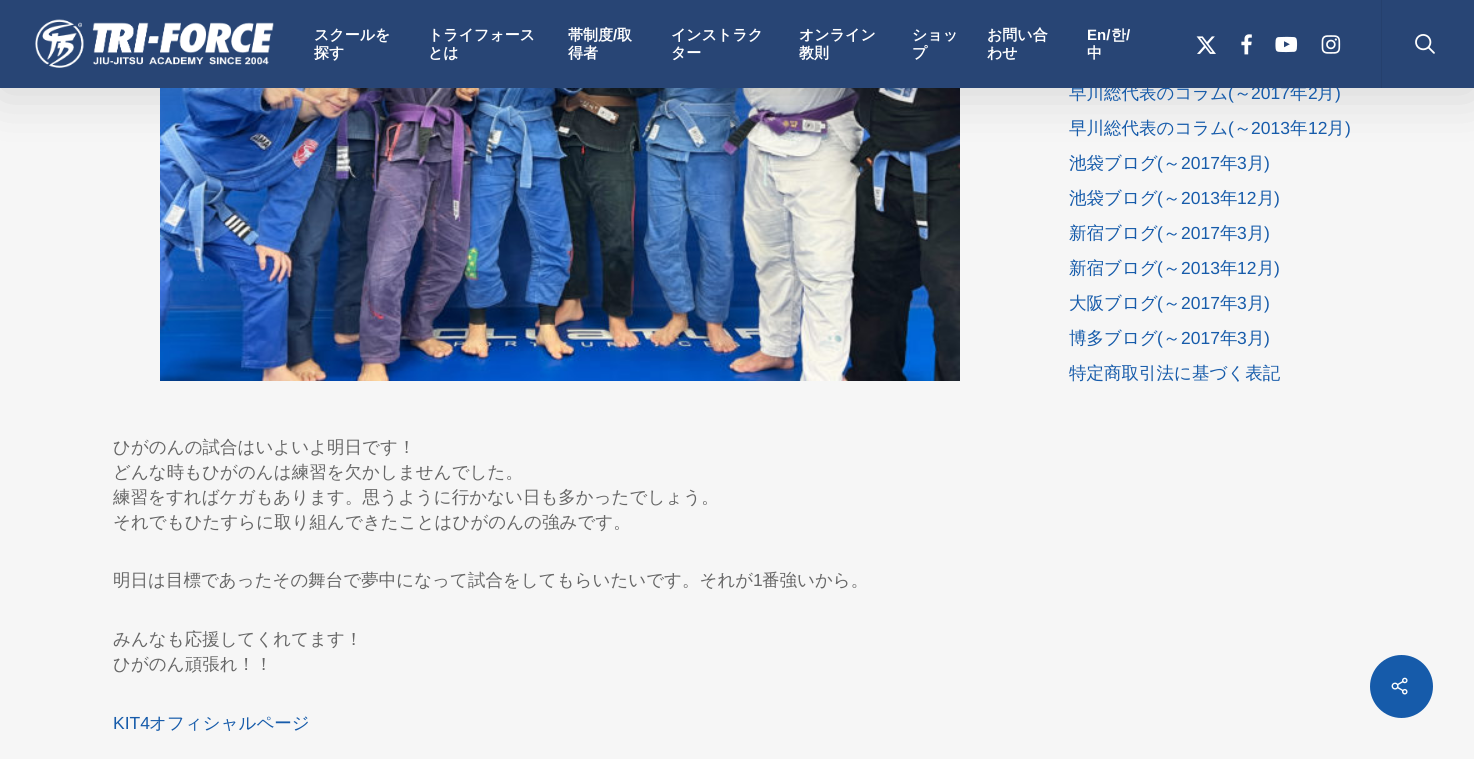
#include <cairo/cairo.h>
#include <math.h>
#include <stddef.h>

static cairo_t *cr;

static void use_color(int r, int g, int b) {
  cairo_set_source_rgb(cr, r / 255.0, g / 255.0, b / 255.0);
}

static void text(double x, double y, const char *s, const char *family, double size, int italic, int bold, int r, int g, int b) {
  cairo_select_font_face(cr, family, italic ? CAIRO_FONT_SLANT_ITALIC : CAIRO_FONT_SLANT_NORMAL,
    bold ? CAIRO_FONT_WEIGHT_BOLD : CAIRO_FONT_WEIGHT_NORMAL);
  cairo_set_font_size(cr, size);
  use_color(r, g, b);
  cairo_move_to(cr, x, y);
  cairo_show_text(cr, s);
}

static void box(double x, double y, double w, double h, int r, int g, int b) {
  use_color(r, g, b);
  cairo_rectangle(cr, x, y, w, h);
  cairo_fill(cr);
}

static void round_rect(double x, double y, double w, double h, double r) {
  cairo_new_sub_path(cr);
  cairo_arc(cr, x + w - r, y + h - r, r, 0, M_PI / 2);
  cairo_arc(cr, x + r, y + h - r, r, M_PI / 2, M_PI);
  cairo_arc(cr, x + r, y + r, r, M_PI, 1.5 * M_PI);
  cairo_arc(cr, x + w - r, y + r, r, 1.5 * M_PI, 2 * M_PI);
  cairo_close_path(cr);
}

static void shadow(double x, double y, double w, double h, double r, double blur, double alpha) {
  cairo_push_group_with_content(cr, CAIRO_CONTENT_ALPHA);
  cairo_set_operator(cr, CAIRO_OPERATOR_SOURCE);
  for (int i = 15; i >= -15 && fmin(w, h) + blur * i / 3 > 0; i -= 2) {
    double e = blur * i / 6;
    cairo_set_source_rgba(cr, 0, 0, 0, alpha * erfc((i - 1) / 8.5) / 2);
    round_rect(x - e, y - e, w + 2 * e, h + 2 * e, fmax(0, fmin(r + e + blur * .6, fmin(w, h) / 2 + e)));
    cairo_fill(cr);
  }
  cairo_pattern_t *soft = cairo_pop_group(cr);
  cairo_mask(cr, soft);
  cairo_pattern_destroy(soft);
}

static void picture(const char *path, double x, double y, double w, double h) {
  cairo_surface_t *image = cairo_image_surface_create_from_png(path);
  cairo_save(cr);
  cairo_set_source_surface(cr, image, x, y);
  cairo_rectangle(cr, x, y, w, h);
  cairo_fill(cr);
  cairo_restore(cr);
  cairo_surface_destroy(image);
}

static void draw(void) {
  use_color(246, 246, 246);
  cairo_paint(cr);
  picture("img_07.png", 160, 88, 800, 293);
  use_color(0, 0, 0);
  shadow(0, 4, 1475, 87, 0, 28, 0.15);
  use_color(22, 91, 170);
  cairo_arc(cr, 1401.5, 686.5, 31.5, 0, 2 * M_PI);
  cairo_fill(cr);
  picture("img_08.png", 1391, 677, 17, 18);
  text(1069, 99, "早川総代表のコラム", "WenQuanYi Zen Hei Medium", 17.5, 0, 0, 22, 91, 170);
  text(1228, 99, "(", "Liberation Sans", 17.5, 0, 0, 22, 91, 170);
  text(1234, 99, "～", "WenQuanYi Zen Hei Medium", 17.5, 0, 0, 22, 91, 170);
  text(1251, 99, "2017", "Liberation Sans", 17.5, 0, 0, 22, 91, 170);
  text(1290, 99, "年", "WenQuanYi Zen Hei Medium", 17.5, 0, 0, 22, 91, 170);
  text(1308, 99, "2", "Liberation Sans", 17.5, 0, 0, 22, 91, 170);
  text(1317, 99, "月", "WenQuanYi Zen Hei Medium", 17.5, 0, 0, 22, 91, 170);
  text(1335, 99, ")", "Liberation Sans", 17.5, 0, 0, 22, 91, 170);
  box(0, 0, 1474, 88, 40, 69, 117);
  picture("img_05.png", 1321, 35, 20, 19);
  picture("img_04.png", 1275, 36, 23, 17);
  picture("img_03.png", 1241, 34, 11, 21);
  picture("img_02.png", 1196, 36, 20, 18);
  text(1087, 58, "中", "WenQuanYi Zen Hei", 15, 0, 1, 255, 255, 255);
  text(1111, 40, "한", "WenQuanYi Zen Hei", 15, 0, 1, 255, 255, 255);
  text(1126, 40, "/", "Liberation Sans", 15, 0, 1, 255, 255, 255);
  text(1087, 40, "En/", "Liberation Sans", 15, 0, 1, 255, 255, 255);
  text(987, 58, "わせ", "WenQuanYi Zen Hei", 15, 0, 1, 255, 255, 255);
  text(987, 40, "お問い合", "WenQuanYi Zen Hei", 15, 0, 1, 255, 255, 255);
  text(912, 58, "プ", "WenQuanYi Zen Hei", 15, 0, 1, 255, 255, 255);
  text(912, 40, "ショッ", "WenQuanYi Zen Hei", 15, 0, 1, 255, 255, 255);
  text(799, 58, "教則", "WenQuanYi Zen Hei", 15, 0, 1, 255, 255, 255);
  text(799, 40, "オンライン", "WenQuanYi Zen Hei", 15, 0, 1, 255, 255, 255);
  text(671, 58, "ター", "WenQuanYi Zen Hei", 15, 0, 1, 255, 255, 255);
  text(671, 40, "インストラク", "WenQuanYi Zen Hei", 15, 0, 1, 255, 255, 255);
  text(568, 58, "得者", "WenQuanYi Zen Hei", 15, 0, 1, 255, 255, 255);
  text(613, 40, "/", "Liberation Sans", 15, 0, 1, 255, 255, 255);
  text(617, 40, "取", "WenQuanYi Zen Hei", 15, 0, 1, 255, 255, 255);
  text(568, 40, "帯制度", "WenQuanYi Zen Hei", 15, 0, 1, 255, 255, 255);
  text(428, 58, "とは", "WenQuanYi Zen Hei", 15, 0, 1, 255, 255, 255);
  text(428, 40, "トライフォース", "WenQuanYi Zen Hei", 15, 0, 1, 255, 255, 255);
  text(314, 58, "探す", "WenQuanYi Zen Hei", 15, 0, 1, 255, 255, 255);
  text(314, 40, "スクールを", "WenQuanYi Zen Hei", 15, 0, 1, 255, 255, 255);
  picture("img_06.png", 1415, 34, 20, 20);
  box(1381, 0, 1, 88, 37, 64, 109);
  picture("img_01.png", 35, 19, 239, 49);
  text(1069, 134, "早川総代表のコラム", "WenQuanYi Zen Hei Medium", 17.5, 0, 0, 22, 91, 170);
  text(1228, 134, "(", "Liberation Sans", 17.5, 0, 0, 22, 91, 170);
  text(1234, 134, "～", "WenQuanYi Zen Hei Medium", 17.5, 0, 0, 22, 91, 170);
  text(1251, 134, "2013", "Liberation Sans", 17.5, 0, 0, 22, 91, 170);
  text(1290, 134, "年", "WenQuanYi Zen Hei Medium", 17.5, 0, 0, 22, 91, 170);
  text(1308, 134, "12", "Liberation Sans", 17.5, 0, 0, 22, 91, 170);
  text(1327, 134, "月", "WenQuanYi Zen Hei Medium", 17.5, 0, 0, 22, 91, 170);
  text(1345, 134, ")", "Liberation Sans", 17.5, 0, 0, 22, 91, 170);
  text(1069, 169, "池袋ブログ", "WenQuanYi Zen Hei Medium", 17.5, 0, 0, 22, 91, 170);
  text(1157, 169, "(", "Liberation Sans", 17.5, 0, 0, 22, 91, 170);
  text(1163, 169, "～", "WenQuanYi Zen Hei Medium", 17.5, 0, 0, 22, 91, 170);
  text(1181, 169, "2017", "Liberation Sans", 17.5, 0, 0, 22, 91, 170);
  text(1220, 169, "年", "WenQuanYi Zen Hei Medium", 17.5, 0, 0, 22, 91, 170);
  text(1237, 169, "3", "Liberation Sans", 17.5, 0, 0, 22, 91, 170);
  text(1247, 169, "月", "WenQuanYi Zen Hei Medium", 17.5, 0, 0, 22, 91, 170);
  text(1264, 169, ")", "Liberation Sans", 17.5, 0, 0, 22, 91, 170);
  text(1069, 204, "池袋ブログ", "WenQuanYi Zen Hei Medium", 17.5, 0, 0, 22, 91, 170);
  text(1157, 204, "(", "Liberation Sans", 17.5, 0, 0, 22, 91, 170);
  text(1163, 204, "～", "WenQuanYi Zen Hei Medium", 17.5, 0, 0, 22, 91, 170);
  text(1181, 204, "2013", "Liberation Sans", 17.5, 0, 0, 22, 91, 170);
  text(1220, 204, "年", "WenQuanYi Zen Hei Medium", 17.5, 0, 0, 22, 91, 170);
  text(1237, 204, "12", "Liberation Sans", 17.5, 0, 0, 22, 91, 170);
  text(1257, 204, "月", "WenQuanYi Zen Hei Medium", 17.5, 0, 0, 22, 91, 170);
  text(1274, 204, ")", "Liberation Sans", 17.5, 0, 0, 22, 91, 170);
  text(1069, 239, "新宿ブログ", "WenQuanYi Zen Hei Medium", 17.5, 0, 0, 22, 91, 170);
  text(1157, 239, "(", "Liberation Sans", 17.5, 0, 0, 22, 91, 170);
  text(1163, 239, "～", "WenQuanYi Zen Hei Medium", 17.5, 0, 0, 22, 91, 170);
  text(1181, 239, "2017", "Liberation Sans", 17.5, 0, 0, 22, 91, 170);
  text(1220, 239, "年", "WenQuanYi Zen Hei Medium", 17.5, 0, 0, 22, 91, 170);
  text(1237, 239, "3", "Liberation Sans", 17.5, 0, 0, 22, 91, 170);
  text(1247, 239, "月", "WenQuanYi Zen Hei Medium", 17.5, 0, 0, 22, 91, 170);
  text(1264, 239, ")", "Liberation Sans", 17.5, 0, 0, 22, 91, 170);
  text(1069, 274, "新宿ブログ", "WenQuanYi Zen Hei Medium", 17.5, 0, 0, 22, 91, 170);
  text(1157, 274, "(", "Liberation Sans", 17.5, 0, 0, 22, 91, 170);
  text(1163, 274, "～", "WenQuanYi Zen Hei Medium", 17.5, 0, 0, 22, 91, 170);
  text(1181, 274, "2013", "Liberation Sans", 17.5, 0, 0, 22, 91, 170);
  text(1220, 274, "年", "WenQuanYi Zen Hei Medium", 17.5, 0, 0, 22, 91, 170);
  text(1237, 274, "12", "Liberation Sans", 17.5, 0, 0, 22, 91, 170);
  text(1257, 274, "月", "WenQuanYi Zen Hei Medium", 17.5, 0, 0, 22, 91, 170);
  text(1274, 274, ")", "Liberation Sans", 17.5, 0, 0, 22, 91, 170);
  text(1069, 309, "大阪ブログ", "WenQuanYi Zen Hei Medium", 17.5, 0, 0, 22, 91, 170);
  text(1157, 309, "(", "Liberation Sans", 17.5, 0, 0, 22, 91, 170);
  text(1163, 309, "～", "WenQuanYi Zen Hei Medium", 17.5, 0, 0, 22, 91, 170);
  text(1181, 309, "2017", "Liberation Sans", 17.5, 0, 0, 22, 91, 170);
  text(1220, 309, "年", "WenQuanYi Zen Hei Medium", 17.5, 0, 0, 22, 91, 170);
  text(1237, 309, "3", "Liberation Sans", 17.5, 0, 0, 22, 91, 170);
  text(1247, 309, "月", "WenQuanYi Zen Hei Medium", 17.5, 0, 0, 22, 91, 170);
  text(1264, 309, ")", "Liberation Sans", 17.5, 0, 0, 22, 91, 170);
  text(1069, 344, "博多ブログ", "WenQuanYi Zen Hei Medium", 17.5, 0, 0, 22, 91, 170);
  text(1157, 344, "(", "Liberation Sans", 17.5, 0, 0, 22, 91, 170);
  text(1163, 344, "～", "WenQuanYi Zen Hei Medium", 17.5, 0, 0, 22, 91, 170);
  text(1181, 344, "2017", "Liberation Sans", 17.5, 0, 0, 22, 91, 170);
  text(1220, 344, "年", "WenQuanYi Zen Hei Medium", 17.5, 0, 0, 22, 91, 170);
  text(1237, 344, "3", "Liberation Sans", 17.5, 0, 0, 22, 91, 170);
  text(1247, 344, "月", "WenQuanYi Zen Hei Medium", 17.5, 0, 0, 22, 91, 170);
  text(1264, 344, ")", "Liberation Sans", 17.5, 0, 0, 22, 91, 170);
  text(1069, 379, "特定商取引法に基づく表記", "WenQuanYi Zen Hei Medium", 17.5, 0, 0, 22, 91, 170);
  text(113, 453, "ひがのんの試合はいよいよ明日です！", "WenQuanYi Zen Hei Medium", 17.5, 0, 0, 103, 103, 103);
  text(113, 478, "どんな時もひがのんは練習を欠かしませんでした。", "WenQuanYi Zen Hei Medium", 17.5, 0, 0, 103, 103, 103);
  text(113, 503, "練習をすればケガもあります。思うように行かない日も多かったでしょう。", "WenQuanYi Zen Hei Medium", 17.5, 0, 0, 103, 103, 103);
  text(113, 528, "それでもひたすらに取り組んできたことはひがのんの強みです。", "WenQuanYi Zen Hei Medium", 17.5, 0, 0, 103, 103, 103);
  text(113, 586, "明日は目標であったその舞台で夢中になって試合をしてもらいたいです。それが", "WenQuanYi Zen Hei Medium", 17.5, 0, 0, 103, 103, 103);
  text(753, 586, "1", "Liberation Sans", 17.5, 0, 0, 103, 103, 103);
  text(762, 586, "番強いから。", "WenQuanYi Zen Hei Medium", 17.5, 0, 0, 103, 103, 103);
  text(113, 645, "みんなも応援してくれてます！", "WenQuanYi Zen Hei Medium", 17.5, 0, 0, 103, 103, 103);
  text(113, 670, "ひがのん頑張れ！！", "WenQuanYi Zen Hei Medium", 17.5, 0, 0, 103, 103, 103);
  text(113, 729, "KIT4", "Liberation Sans", 17.5, 0, 0, 22, 91, 170);
  text(149, 729, "オフィシャルページ", "WenQuanYi Zen Hei Medium", 17.5, 0, 0, 22, 91, 170);
}

int main(void) {
  cairo_surface_t *surface = cairo_image_surface_create(CAIRO_FORMAT_RGB24, 1474, 759);
  cr = cairo_create(surface);
  cairo_font_options_t *options = cairo_font_options_create();
  cairo_font_options_set_hint_metrics(options, CAIRO_HINT_METRICS_OFF);
  cairo_font_options_set_hint_style(options, CAIRO_HINT_STYLE_NONE);
  cairo_set_font_options(cr, options);
  cairo_set_miter_limit(cr, 4);
  draw();
  cairo_surface_write_to_png(surface, "out.png");
  cairo_font_options_destroy(options);
  cairo_destroy(cr);
  cairo_surface_destroy(surface);
  return 0;
}
